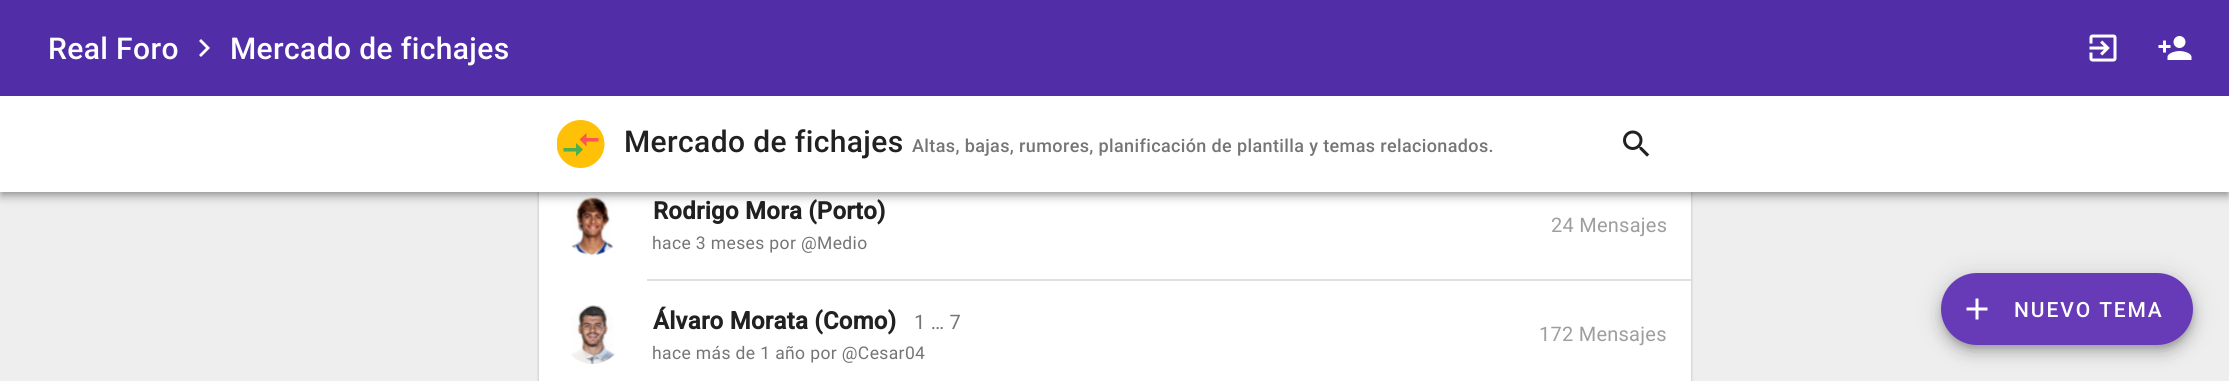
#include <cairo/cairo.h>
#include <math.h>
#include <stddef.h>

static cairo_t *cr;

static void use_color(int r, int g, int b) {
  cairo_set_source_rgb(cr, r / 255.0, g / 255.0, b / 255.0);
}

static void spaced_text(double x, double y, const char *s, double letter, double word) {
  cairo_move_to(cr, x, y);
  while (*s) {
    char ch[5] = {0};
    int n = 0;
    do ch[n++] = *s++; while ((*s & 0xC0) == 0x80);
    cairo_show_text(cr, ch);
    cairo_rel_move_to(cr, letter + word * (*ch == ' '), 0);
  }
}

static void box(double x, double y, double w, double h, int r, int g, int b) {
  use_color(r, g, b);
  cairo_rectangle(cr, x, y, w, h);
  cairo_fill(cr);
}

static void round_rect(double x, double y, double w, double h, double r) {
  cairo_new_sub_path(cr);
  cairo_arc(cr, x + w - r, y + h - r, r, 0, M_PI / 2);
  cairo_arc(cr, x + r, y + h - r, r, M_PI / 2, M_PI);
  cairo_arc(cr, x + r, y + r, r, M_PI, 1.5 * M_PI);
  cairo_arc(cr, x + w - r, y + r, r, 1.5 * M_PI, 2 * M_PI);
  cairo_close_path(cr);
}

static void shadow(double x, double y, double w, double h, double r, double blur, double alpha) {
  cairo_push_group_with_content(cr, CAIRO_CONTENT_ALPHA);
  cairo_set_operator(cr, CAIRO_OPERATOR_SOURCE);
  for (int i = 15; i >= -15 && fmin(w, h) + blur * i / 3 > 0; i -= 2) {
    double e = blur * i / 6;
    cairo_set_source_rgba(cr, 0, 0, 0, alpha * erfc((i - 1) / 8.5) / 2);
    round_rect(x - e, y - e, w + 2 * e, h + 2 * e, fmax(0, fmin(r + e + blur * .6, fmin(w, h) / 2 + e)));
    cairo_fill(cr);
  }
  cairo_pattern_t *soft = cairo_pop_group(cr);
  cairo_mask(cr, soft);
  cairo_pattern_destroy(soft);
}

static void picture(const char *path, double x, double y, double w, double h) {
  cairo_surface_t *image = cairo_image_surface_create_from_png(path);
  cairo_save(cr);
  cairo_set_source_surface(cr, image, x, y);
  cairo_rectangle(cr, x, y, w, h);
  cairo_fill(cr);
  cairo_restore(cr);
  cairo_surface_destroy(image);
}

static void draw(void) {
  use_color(238, 238, 238);
  cairo_paint(cr);
  use_color(0, 0, 0);
  shadow(539, -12, 1152, 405, 6, 2, 0.12);
  shadow(539, -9, 1152, 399, 6, 1, 0.14);
  box(539, 192, 1152, 189, 255, 255, 255);
  picture("img_04.png", 571, 197, 43, 58);
  use_color(0, 0, 0);
  shadow(0, 2, 2229, 192, 0, 7.5, 0.12);
  shadow(0, 6, 2229, 192, 0, 4, 0.14);
  shadow(2, 5, 2226, 189, 0, 3, 0.2);
  box(0, 0, 2229, 96, 81, 45, 168);
  use_color(255, 255, 255);
  cairo_new_path(cr);
  cairo_move_to(cr, 201, 39);
  cairo_line_to(cr, 199, 41);
  cairo_line_to(cr, 206, 48);
  cairo_line_to(cr, 199, 55);
  cairo_line_to(cr, 201, 57);
  cairo_line_to(cr, 210, 48);
  cairo_close_path(cr);
  cairo_fill(cr);
  picture("img_01.png", 2089, 34, 28, 28);
  picture("img_02.png", 2158, 36, 34, 24);
  box(0, 96, 2229, 96, 255, 255, 255);
  cairo_save(cr);
  cairo_rectangle(cr, 557, 120, 48, 48);
  cairo_clip(cr);
  use_color(255, 193, 7);
  cairo_arc(cr, 580.5, 144, 24, 0, 2 * M_PI);
  cairo_fill(cr);
  cairo_restore(cr);
  use_color(76, 175, 80);
  cairo_new_path(cr);
  cairo_move_to(cr, 576, 148);
  cairo_line_to(cr, 563.5, 148);
  cairo_line_to(cr, 563.5, 151.5);
  cairo_line_to(cr, 576, 151.5);
  cairo_line_to(cr, 576, 156.5);
  cairo_line_to(cr, 583, 149.5);
  cairo_line_to(cr, 576, 143);
  cairo_close_path(cr);
  cairo_fill(cr);
  use_color(255, 82, 82);
  cairo_new_path(cr);
  cairo_move_to(cr, 586.5, 141.5);
  cairo_line_to(cr, 598.5, 141.5);
  cairo_line_to(cr, 598.5, 138);
  cairo_line_to(cr, 586.5, 138);
  cairo_line_to(cr, 586.5, 133);
  cairo_line_to(cr, 579.5, 139.5);
  cairo_line_to(cr, 586.5, 146.5);
  cairo_close_path(cr);
  cairo_fill(cr);
  picture("img_03.png", 1623, 130, 27, 27);
  box(647, 279, 1044, 2, 224, 224, 224);
  picture("img_05.png", 571, 305, 44, 59);
  use_color(0, 0, 0);
  shadow(1941, 275, 252, 72, 36, 13.5, 0.12);
  shadow(1941, 282, 252, 72, 36, 7.5, 0.14);
  shadow(1943, 279, 249, 69, 34.5, 4, 0.2);
  use_color(103, 58, 183);
  round_rect(1941, 273, 252, 72, 36);
  cairo_fill(cr);
  picture("img_06.png", 1966, 298, 22, 22);
  cairo_select_font_face(cr, "Roboto Medium", CAIRO_FONT_SLANT_NORMAL, CAIRO_FONT_WEIGHT_NORMAL);
  cairo_set_font_size(cr, 30);
  use_color(255, 255, 255);
  spaced_text(48, 59, "Real Foro", 0.38, 0);
  spaced_text(230, 59, "Mercado de fichajes", 0.38, 0);
  use_color(33, 33, 33);
  spaced_text(624, 152, "Mercado de fichajes", 0.38, 0);
  cairo_set_font_size(cr, 18);
  use_color(117, 117, 117);
  spaced_text(912, 152, "Altas, bajas, rumores, planificación de plantilla y temas relacionados.", 0.38, 0);
  cairo_select_font_face(cr, "Roboto", CAIRO_FONT_SLANT_NORMAL, CAIRO_FONT_WEIGHT_BOLD);
  cairo_set_font_size(cr, 24);
  use_color(33, 33, 33);
  spaced_text(653, 219, "Rodrigo Mora (Porto)", 0.25, 0);
  cairo_select_font_face(cr, "Roboto", CAIRO_FONT_SLANT_NORMAL, CAIRO_FONT_WEIGHT_NORMAL);
  cairo_set_font_size(cr, 17.5);
  use_color(117, 117, 117);
  spaced_text(652, 249, "hace 3 meses por @Medio", 0.38, 0);
  cairo_set_font_size(cr, 20);
  use_color(158, 158, 158);
  spaced_text(1551, 232, "24 Mensajes", 0.25, 0);
  cairo_select_font_face(cr, "Roboto", CAIRO_FONT_SLANT_NORMAL, CAIRO_FONT_WEIGHT_BOLD);
  cairo_set_font_size(cr, 24);
  use_color(33, 33, 33);
  spaced_text(653, 329, "Álvaro Morata (Como)", 0.25, 0);
  cairo_select_font_face(cr, "Roboto", CAIRO_FONT_SLANT_NORMAL, CAIRO_FONT_WEIGHT_NORMAL);
  cairo_set_font_size(cr, 20);
  use_color(117, 117, 117);
  spaced_text(914, 329, "1 … 7", 0.25, 0);
  cairo_set_font_size(cr, 17.5);
  spaced_text(652, 359, "hace más de 1 año por @Cesar04", 0.38, 0);
  cairo_set_font_size(cr, 20);
  use_color(158, 158, 158);
  spaced_text(1539, 341, "172 Mensajes", 0.25, 0);
  cairo_select_font_face(cr, "Roboto Medium", CAIRO_FONT_SLANT_NORMAL, CAIRO_FONT_WEIGHT_NORMAL);
  cairo_set_font_size(cr, 21);
  use_color(255, 255, 255);
  spaced_text(2014, 317, "NUEVO TEMA", 1.9, 0);
}

int main(void) {
  cairo_surface_t *surface = cairo_image_surface_create(CAIRO_FORMAT_RGB24, 2229, 381);
  cr = cairo_create(surface);
  cairo_font_options_t *options = cairo_font_options_create();
  cairo_font_options_set_hint_metrics(options, CAIRO_HINT_METRICS_OFF);
  cairo_font_options_set_hint_style(options, CAIRO_HINT_STYLE_NONE);
  cairo_set_font_options(cr, options);
  cairo_set_miter_limit(cr, 4);
  draw();
  cairo_surface_write_to_png(surface, "out.png");
  cairo_font_options_destroy(options);
  cairo_destroy(cr);
  cairo_surface_destroy(surface);
  return 0;
}
